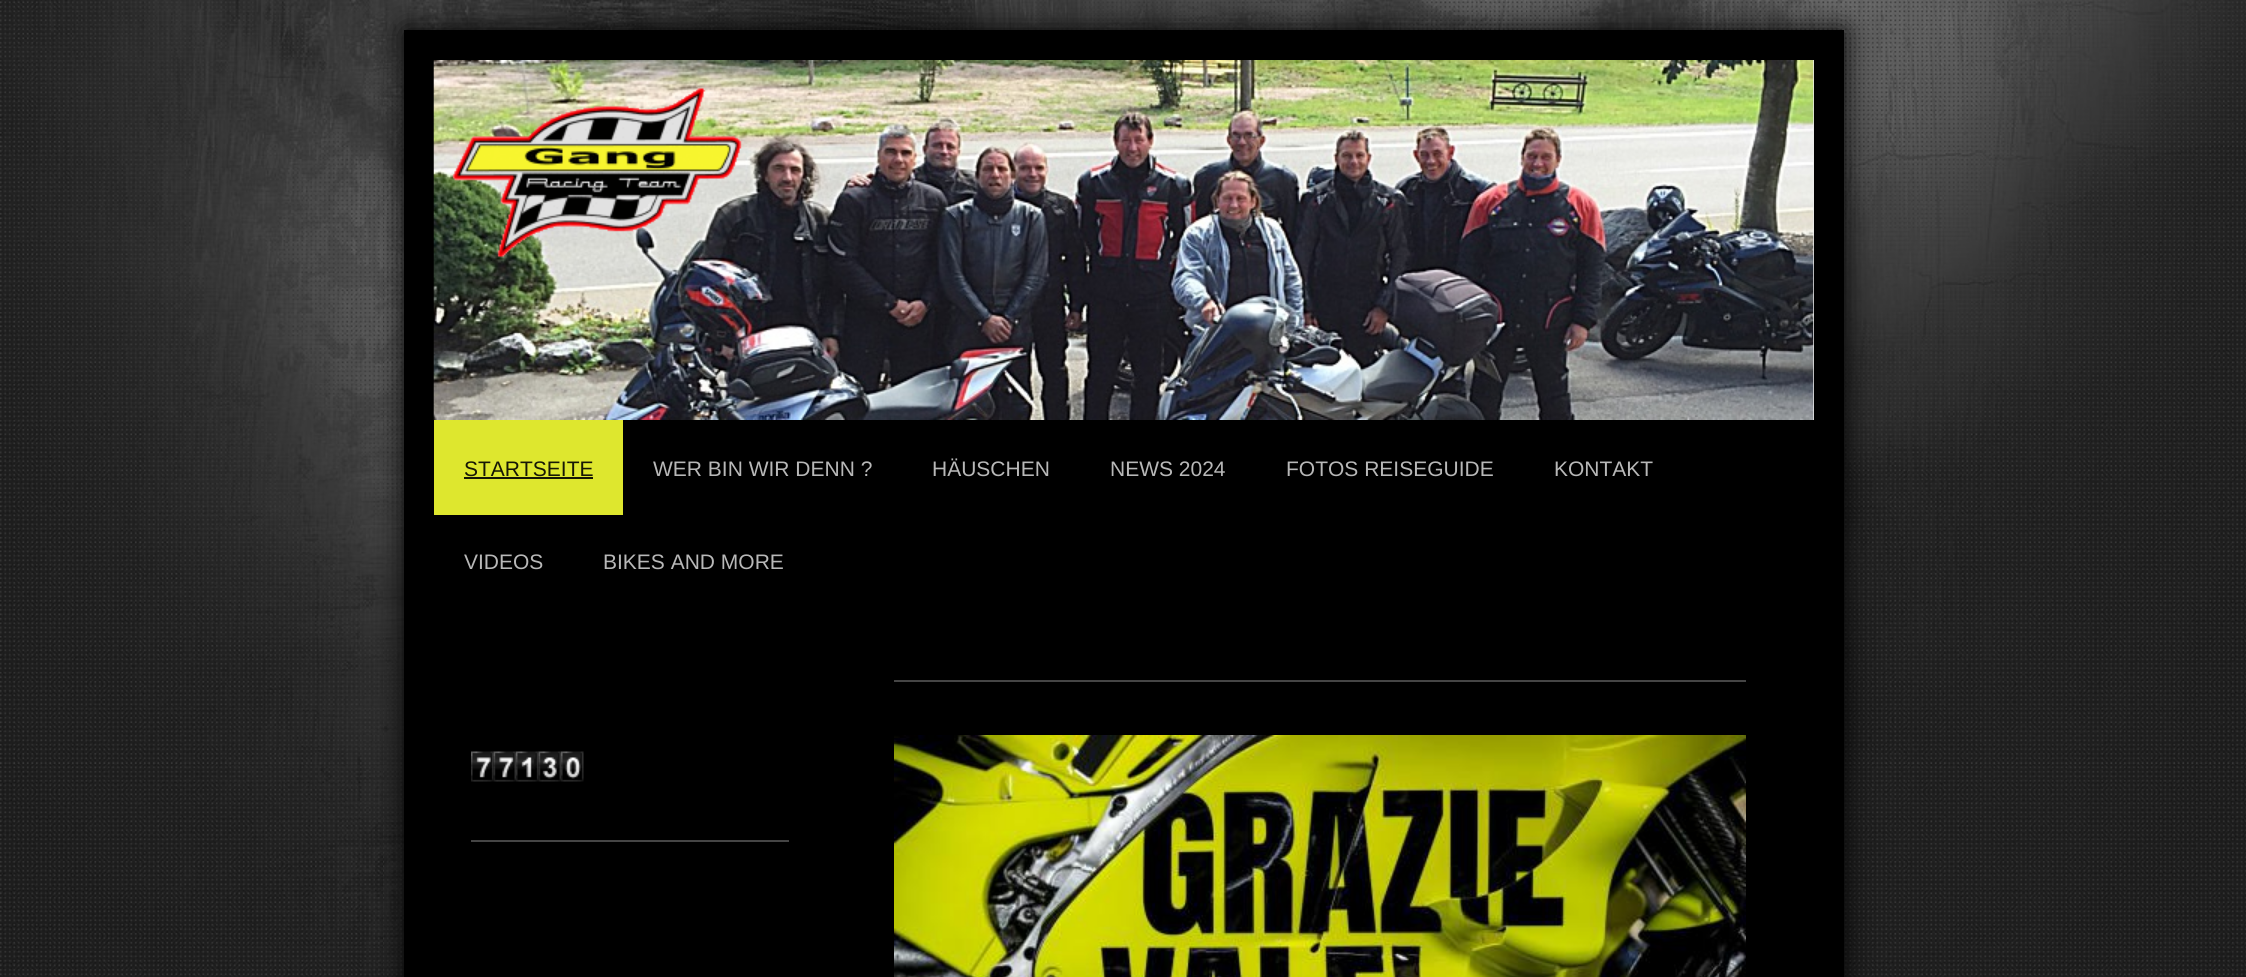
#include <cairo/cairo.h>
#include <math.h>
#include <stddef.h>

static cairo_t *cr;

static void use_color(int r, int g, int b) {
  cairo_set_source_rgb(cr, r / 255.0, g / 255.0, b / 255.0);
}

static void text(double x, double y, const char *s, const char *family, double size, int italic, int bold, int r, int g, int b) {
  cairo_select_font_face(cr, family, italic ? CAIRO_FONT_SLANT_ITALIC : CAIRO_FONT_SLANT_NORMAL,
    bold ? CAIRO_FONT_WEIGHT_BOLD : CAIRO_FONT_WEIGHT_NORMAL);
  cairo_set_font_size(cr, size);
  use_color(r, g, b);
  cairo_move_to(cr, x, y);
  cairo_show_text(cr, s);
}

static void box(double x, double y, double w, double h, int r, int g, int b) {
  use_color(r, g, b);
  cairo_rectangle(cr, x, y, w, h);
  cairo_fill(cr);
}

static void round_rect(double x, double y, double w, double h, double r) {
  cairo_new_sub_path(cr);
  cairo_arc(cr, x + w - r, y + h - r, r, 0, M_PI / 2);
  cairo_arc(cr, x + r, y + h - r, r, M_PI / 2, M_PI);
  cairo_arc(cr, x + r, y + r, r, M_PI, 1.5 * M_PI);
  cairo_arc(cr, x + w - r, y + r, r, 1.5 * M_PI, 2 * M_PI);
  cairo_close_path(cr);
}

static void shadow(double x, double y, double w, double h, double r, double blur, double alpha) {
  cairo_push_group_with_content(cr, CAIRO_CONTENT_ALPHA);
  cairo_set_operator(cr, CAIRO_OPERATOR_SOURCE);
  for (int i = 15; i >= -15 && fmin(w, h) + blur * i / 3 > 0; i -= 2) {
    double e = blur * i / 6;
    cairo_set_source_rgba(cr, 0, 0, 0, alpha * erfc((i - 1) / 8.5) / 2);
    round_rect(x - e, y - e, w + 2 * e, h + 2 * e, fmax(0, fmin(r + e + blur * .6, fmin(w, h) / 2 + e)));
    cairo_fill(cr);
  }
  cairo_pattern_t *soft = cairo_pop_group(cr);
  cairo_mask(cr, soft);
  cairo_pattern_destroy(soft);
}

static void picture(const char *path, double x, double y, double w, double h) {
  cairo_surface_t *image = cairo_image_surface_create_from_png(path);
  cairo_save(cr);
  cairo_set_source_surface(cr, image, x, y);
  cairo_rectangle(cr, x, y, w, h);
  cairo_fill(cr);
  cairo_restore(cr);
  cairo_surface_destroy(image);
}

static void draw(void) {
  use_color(255, 255, 255);
  cairo_paint(cr);
  picture("img_01.png", 0, 0, 2246, 977);
  use_color(0, 0, 0);
  shadow(404, 30, 1440, 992, 0, 15, 1);
  box(404, 30, 1440, 947, 0, 0, 0);
  box(1813, 60, 1, 360, 238, 238, 238);
  picture("img_02.png", 433, 60, 1381, 360);
  picture("img_03.png", 452, 88, 290, 169);
  box(434, 420, 189, 95, 222, 231, 46);
  box(464, 477, 129, 2, 22, 23, 5);
  picture("img_04.png", 471, 751, 23, 31);
  picture("img_05.png", 493, 751, 23, 31);
  picture("img_06.png", 516, 751, 23, 31);
  picture("img_07.png", 538, 751, 23, 31);
  picture("img_08.png", 561, 751, 23, 31);
  box(471, 840, 318, 2, 69, 69, 69);
  box(894, 680, 852, 2, 69, 69, 69);
  picture("img_09.png", 894, 735, 852, 242);
  text(464, 476, "STARTSEITE", "Liberation Sans", 21, 0, 0, 22, 23, 5);
  text(653, 476, "WER BIN WIR DENN ?", "Liberation Sans", 21, 0, 0, 184, 184, 184);
  text(932, 476, "HÄUSCHEN", "Liberation Sans", 21, 0, 0, 184, 184, 184);
  text(1110, 476, "NEWS 2024", "Liberation Sans", 21, 0, 0, 184, 184, 184);
  text(1286, 476, "FOTOS REISEGUIDE", "Liberation Sans", 21, 0, 0, 184, 184, 184);
  text(1554, 476, "KONTAKT", "Liberation Sans", 21, 0, 0, 184, 184, 184);
  text(464, 569, "VIDEOS", "Liberation Sans", 21, 0, 0, 184, 184, 184);
  text(603, 569, "BIKES AND MORE", "Liberation Sans", 21, 0, 0, 184, 184, 184);
}

int main(void) {
  cairo_surface_t *surface = cairo_image_surface_create(CAIRO_FORMAT_RGB24, 2246, 977);
  cr = cairo_create(surface);
  cairo_font_options_t *options = cairo_font_options_create();
  cairo_font_options_set_hint_metrics(options, CAIRO_HINT_METRICS_OFF);
  cairo_font_options_set_hint_style(options, CAIRO_HINT_STYLE_NONE);
  cairo_set_font_options(cr, options);
  cairo_set_miter_limit(cr, 4);
  draw();
  cairo_surface_write_to_png(surface, "out.png");
  cairo_font_options_destroy(options);
  cairo_destroy(cr);
  cairo_surface_destroy(surface);
  return 0;
}
